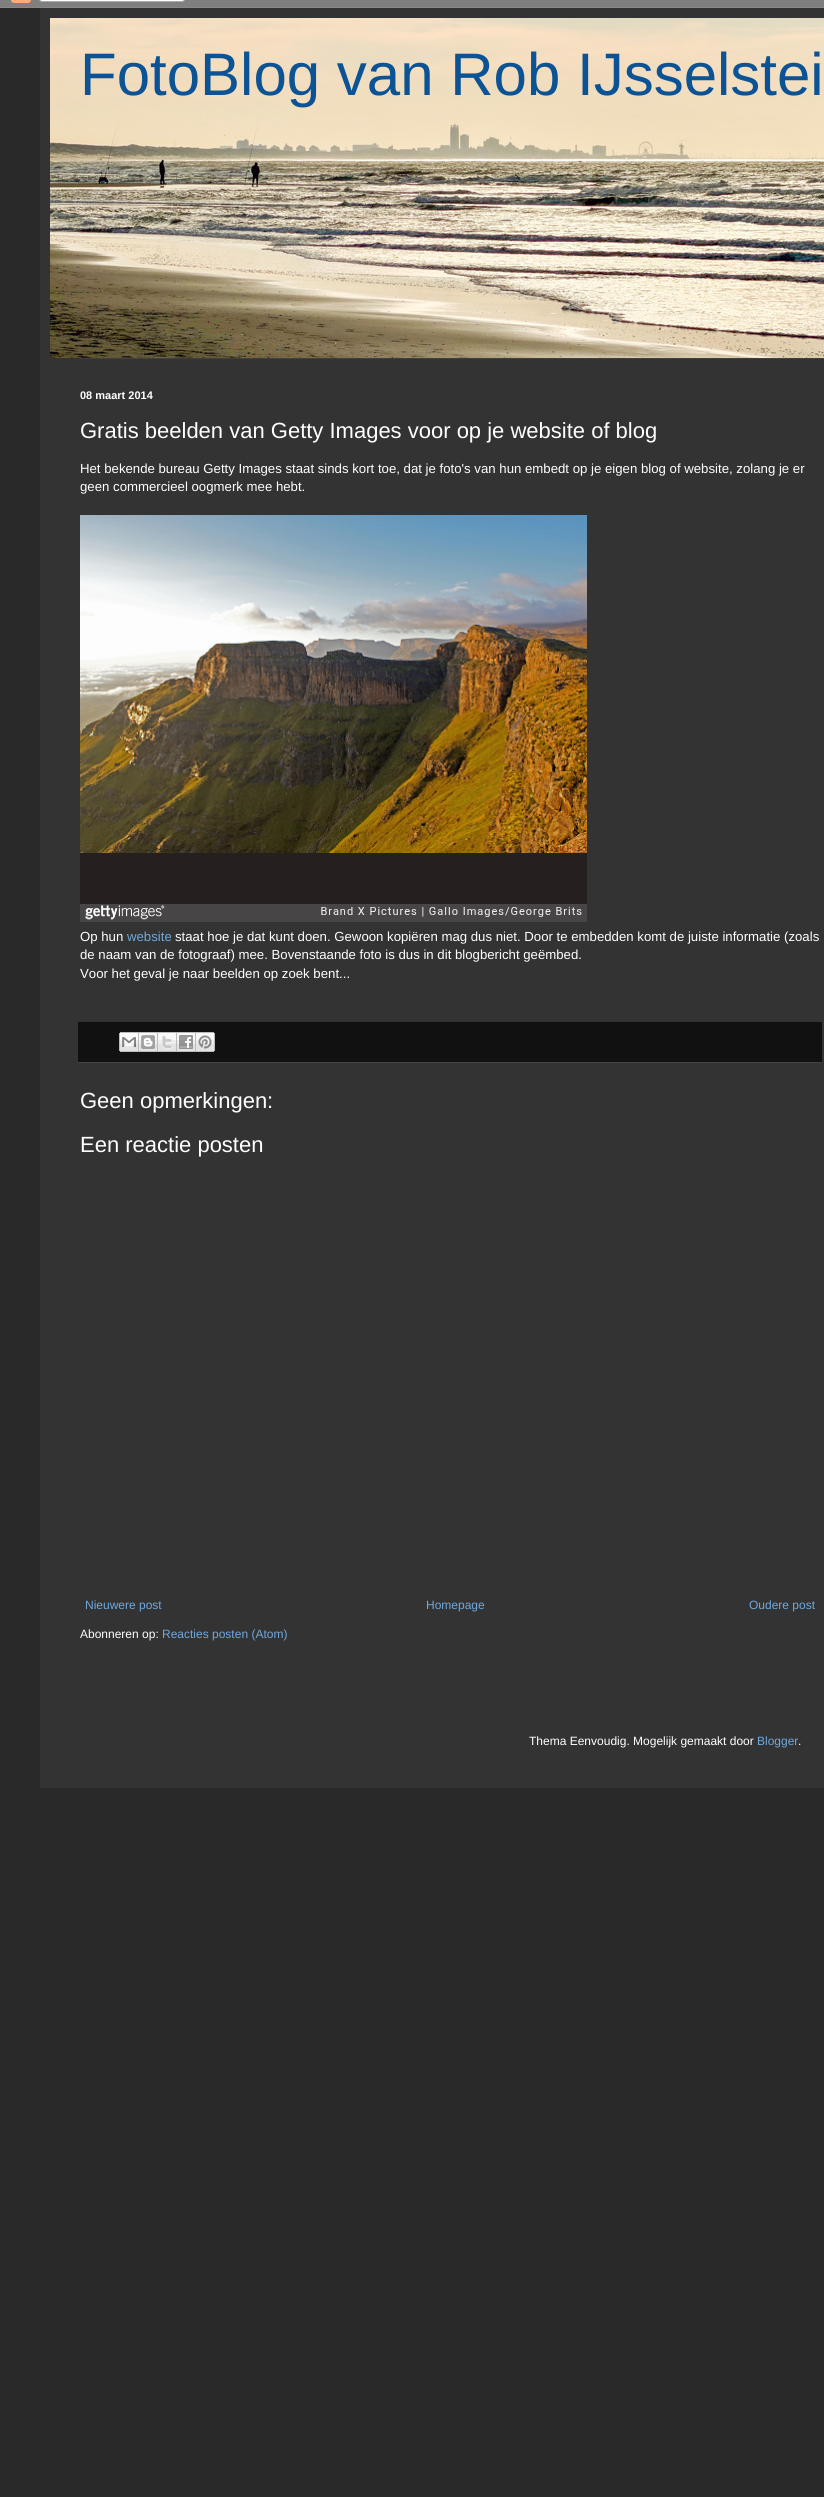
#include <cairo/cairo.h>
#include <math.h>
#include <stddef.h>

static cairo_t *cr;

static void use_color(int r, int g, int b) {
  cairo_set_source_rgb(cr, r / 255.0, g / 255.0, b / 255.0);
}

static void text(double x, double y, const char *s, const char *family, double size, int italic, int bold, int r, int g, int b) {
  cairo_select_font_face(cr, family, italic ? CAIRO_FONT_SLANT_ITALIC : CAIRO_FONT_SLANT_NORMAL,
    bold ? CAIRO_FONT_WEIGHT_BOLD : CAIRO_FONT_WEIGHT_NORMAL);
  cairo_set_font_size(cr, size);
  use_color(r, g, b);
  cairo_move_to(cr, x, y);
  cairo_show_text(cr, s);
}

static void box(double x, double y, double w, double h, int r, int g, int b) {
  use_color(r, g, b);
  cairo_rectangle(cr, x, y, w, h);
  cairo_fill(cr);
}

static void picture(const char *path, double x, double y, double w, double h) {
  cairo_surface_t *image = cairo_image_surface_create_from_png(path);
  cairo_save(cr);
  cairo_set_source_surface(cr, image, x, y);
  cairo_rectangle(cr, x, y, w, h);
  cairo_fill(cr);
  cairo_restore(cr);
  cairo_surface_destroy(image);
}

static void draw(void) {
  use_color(41, 41, 41);
  cairo_paint(cr);
  picture("img_01.png", 0, 0, 824, 8);
  box(40, 8, 784, 1780, 51, 51, 51);
  picture("img_02.png", 50, 18, 774, 340);
  box(80, 358, 744, 1, 64, 64, 64);
  picture("img_03.png", 80, 515, 507, 407);
  box(78, 1022, 744, 40, 17, 17, 17);
  box(78, 1062, 744, 1, 68, 68, 68);
  picture("img_04.png", 119, 1032, 20, 20);
  picture("img_05.png", 139, 1032, 19, 20);
  picture("img_06.png", 158, 1032, 19, 20);
  picture("img_07.png", 177, 1032, 19, 20);
  picture("img_08.png", 196, 1032, 19, 20);
  text(80, 95, "FotoBlog van Rob IJsselstei", "Liberation Sans", 60, 0, 0, 11, 83, 148);
  text(80, 399, "08 maart 2014", "Liberation Sans", 11, 0, 1, 255, 255, 255);
  text(80, 438, "Gratis beelden van Getty Images voor op je website of blog", "Liberation Sans", 22, 0, 0, 255, 255, 255);
  text(80, 473, "Het bekende bureau Getty Images staat sinds kort toe, dat je foto's van hun embedt op je eigen blog of website, zolang je er", "Liberation Sans", 13.2, 0, 0, 255, 255, 255);
  text(80, 491, "geen commercieel oogmerk mee hebt.", "Liberation Sans", 13.2, 0, 0, 255, 255, 255);
  text(80, 941, "Op hun", "Liberation Sans", 13.2, 0, 0, 255, 255, 255);
  text(127, 941, "website", "Liberation Sans", 13.2, 0, 0, 111, 168, 220);
  text(175, 941, "staat hoe je dat kunt doen. Gewoon kopiëren mag dus niet. Door te embedden komt de juiste informatie (zoals", "Liberation Sans", 13.2, 0, 0, 255, 255, 255);
  text(80, 959, "de naam van de fotograaf) mee. Bovenstaande foto is dus in dit blogbericht geëmbed.", "Liberation Sans", 13.2, 0, 0, 255, 255, 255);
  text(80, 978, "Voor het geval je naar beelden op zoek bent...", "Liberation Sans", 13.2, 0, 0, 255, 255, 255);
  text(80, 1108, "Geen opmerkingen:", "Liberation Sans", 22, 0, 0, 255, 255, 255);
  text(80, 1152, "Een reactie posten", "Liberation Sans", 22, 0, 0, 255, 255, 255);
  text(85, 1609, "Nieuwere post", "Liberation Sans", 12, 0, 0, 111, 168, 220);
  text(426, 1609, "Homepage", "Liberation Sans", 12, 0, 0, 111, 168, 220);
  text(749, 1609, "Oudere post", "Liberation Sans", 12, 0, 0, 111, 168, 220);
  text(80, 1638, "Abonneren op:", "Liberation Sans", 12, 0, 0, 255, 255, 255);
  text(162, 1638, "Reacties posten (Atom)", "Liberation Sans", 12, 0, 0, 111, 168, 220);
  text(529, 1745, "Thema Eenvoudig. Mogelijk gemaakt door", "Liberation Sans", 12, 0, 0, 255, 255, 255);
  text(757, 1745, "Blogger", "Liberation Sans", 12, 0, 0, 111, 168, 220);
  text(798, 1745, ".", "Liberation Sans", 12, 0, 0, 255, 255, 255);
}

int main(void) {
  cairo_surface_t *surface = cairo_image_surface_create(CAIRO_FORMAT_RGB24, 824, 2497);
  cr = cairo_create(surface);
  cairo_font_options_t *options = cairo_font_options_create();
  cairo_font_options_set_hint_metrics(options, CAIRO_HINT_METRICS_OFF);
  cairo_font_options_set_hint_style(options, CAIRO_HINT_STYLE_NONE);
  cairo_set_font_options(cr, options);
  cairo_set_miter_limit(cr, 4);
  draw();
  cairo_surface_write_to_png(surface, "out.png");
  cairo_font_options_destroy(options);
  cairo_destroy(cr);
  cairo_surface_destroy(surface);
  return 0;
}
